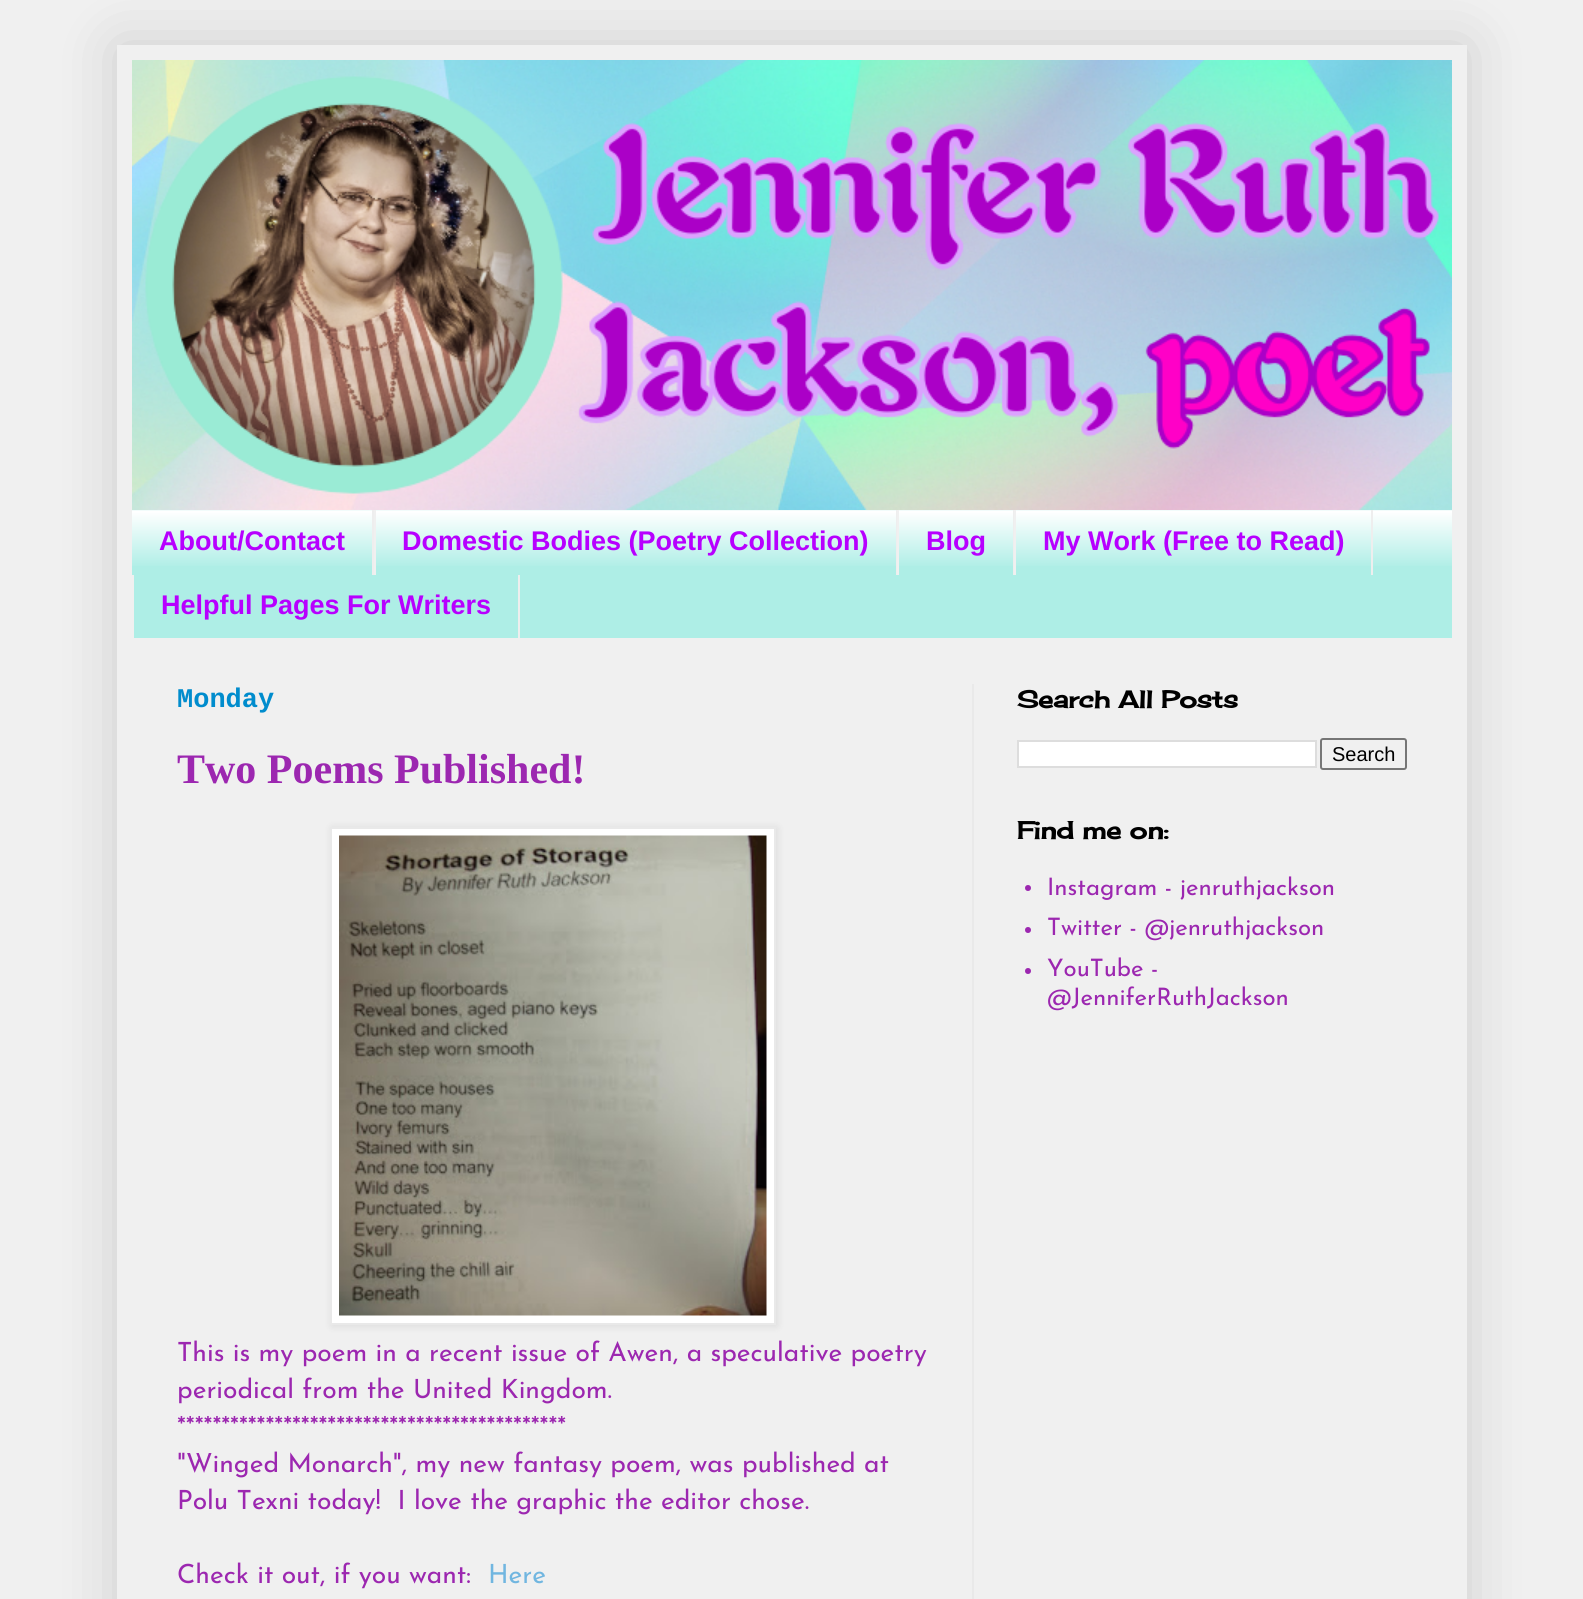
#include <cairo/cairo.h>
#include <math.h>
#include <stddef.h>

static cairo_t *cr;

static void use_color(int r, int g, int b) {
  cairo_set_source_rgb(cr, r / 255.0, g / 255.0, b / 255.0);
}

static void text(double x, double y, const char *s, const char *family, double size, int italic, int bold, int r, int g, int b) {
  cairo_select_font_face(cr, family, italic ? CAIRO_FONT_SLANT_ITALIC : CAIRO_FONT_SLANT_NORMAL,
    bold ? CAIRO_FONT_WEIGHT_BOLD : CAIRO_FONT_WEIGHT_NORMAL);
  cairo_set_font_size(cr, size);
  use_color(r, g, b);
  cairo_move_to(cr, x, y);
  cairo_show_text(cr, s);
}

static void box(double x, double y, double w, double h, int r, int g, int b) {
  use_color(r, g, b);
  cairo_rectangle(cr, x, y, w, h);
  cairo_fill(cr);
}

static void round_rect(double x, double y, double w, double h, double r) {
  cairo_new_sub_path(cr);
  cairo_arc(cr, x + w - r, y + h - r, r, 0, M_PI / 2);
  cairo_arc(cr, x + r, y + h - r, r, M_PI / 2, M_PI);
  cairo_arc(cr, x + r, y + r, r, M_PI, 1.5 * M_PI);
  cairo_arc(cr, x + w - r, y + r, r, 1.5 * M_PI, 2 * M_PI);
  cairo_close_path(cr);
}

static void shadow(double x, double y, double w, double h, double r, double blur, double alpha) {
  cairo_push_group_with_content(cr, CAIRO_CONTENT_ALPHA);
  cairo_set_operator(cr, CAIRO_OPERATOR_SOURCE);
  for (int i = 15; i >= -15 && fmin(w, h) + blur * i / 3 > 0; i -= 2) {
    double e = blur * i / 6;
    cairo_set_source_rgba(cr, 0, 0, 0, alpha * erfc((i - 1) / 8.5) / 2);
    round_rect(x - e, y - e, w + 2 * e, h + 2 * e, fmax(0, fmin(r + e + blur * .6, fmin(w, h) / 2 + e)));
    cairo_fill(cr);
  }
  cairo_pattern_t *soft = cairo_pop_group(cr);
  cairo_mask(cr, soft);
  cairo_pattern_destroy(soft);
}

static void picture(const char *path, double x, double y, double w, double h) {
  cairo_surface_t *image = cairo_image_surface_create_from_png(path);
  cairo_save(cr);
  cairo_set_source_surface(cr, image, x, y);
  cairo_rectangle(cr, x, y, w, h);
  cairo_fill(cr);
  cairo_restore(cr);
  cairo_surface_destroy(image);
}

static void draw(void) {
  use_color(240, 240, 240);
  cairo_paint(cr);
  cairo_save(cr);
  cairo_set_fill_rule(cr, CAIRO_FILL_RULE_EVEN_ODD);
  cairo_new_path(cr);
  cairo_move_to(cr, 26, 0);
  cairo_line_to(cr, 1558, 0);
  cairo_line_to(cr, 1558, 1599);
  cairo_line_to(cr, 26, 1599);
  cairo_close_path(cr);
  cairo_move_to(cr, 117, 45);
  cairo_line_to(cr, 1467, 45);
  cairo_line_to(cr, 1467, 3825);
  cairo_line_to(cr, 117, 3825);
  cairo_close_path(cr);
  cairo_clip(cr);
  use_color(0, 0, 0);
  shadow(117, 45, 1350, 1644, 0, 30, 0.15);
  cairo_restore(cr);
  picture("img_01.png", 132, 60, 1320, 450);
  box(132, 510, 1320, 128, 174, 238, 230);
  picture("img_02.png", 132, 510, 1320, 56);
  box(372, 510, 2, 65, 238, 238, 238);
  box(896, 510, 1, 65, 238, 238, 238);
  box(374, 510, 2, 65, 240, 240, 240);
  box(1013, 510, 1, 65, 238, 238, 238);
  box(897, 510, 2, 65, 240, 240, 240);
  box(1371, 510, 2, 65, 238, 238, 238);
  box(1014, 510, 2, 65, 240, 240, 240);
  box(518, 575, 2, 63, 238, 238, 238);
  box(132, 575, 2, 63, 240, 240, 240);
  box(972, 684, 2, 915, 233, 233, 233);
  use_color(0, 0, 0);
  shadow(332, 828, 445, 498, 0, 4, 0.1);
  use_color(255, 255, 255);
  cairo_rectangle(cr, 331, 828, 444, 496);
  cairo_fill_preserve(cr);
  use_color(233, 233, 233);
  cairo_stroke(cr);
  picture("img_03.png", 339, 835, 428, 481);
  use_color(255, 255, 255);
  cairo_rectangle(cr, 1018, 741, 298, 26);
  cairo_fill_preserve(cr);
  use_color(221, 221, 221);
  cairo_stroke(cr);
  round_rect(1321, 739, 85, 30, 2);
  use_color(118, 118, 118);
  cairo_stroke(cr);
  use_color(156, 39, 176);
  cairo_arc(cr, 1028, 888, 3, 0, 2 * M_PI);
  cairo_fill(cr);
  cairo_arc(cr, 1028, 930, 3, 0, 2 * M_PI);
  cairo_fill(cr);
  cairo_arc(cr, 1028, 971, 3, 0, 2 * M_PI);
  cairo_fill(cr);
  text(159, 550, "About/Contact", "Liberation Sans", 27, 0, 1, 183, 0, 255);
  text(402, 550, "Domestic Bodies (Poetry Collection)", "Liberation Sans", 27, 0, 1, 183, 0, 255);
  text(926, 550, "Blog", "Liberation Sans", 27, 0, 1, 183, 0, 255);
  text(1043, 550, "My Work (Free to Read)", "Liberation Sans", 27, 0, 1, 183, 0, 255);
  text(161, 614, "Helpful Pages For Writers", "Liberation Sans", 27, 0, 1, 183, 0, 255);
  text(177, 707, "Monday", "Liberation Mono", 27, 0, 1, 0, 140, 205);
  text(177, 783, "Two Poems Published!", "Tinos", 42, 0, 1, 156, 39, 176);
  text(177, 1361, "This is my poem in a recent issue of Awen, a speculative poetry", "Josefin Sans Thin", 26.4, 0, 0, 156, 39, 176);
  text(177, 1398, "periodical from the United Kingdom.", "Josefin Sans Thin", 26.4, 0, 0, 156, 39, 176);
  text(177, 1435, "********************************************", "Josefin Sans Thin", 26.4, 0, 0, 156, 39, 176);
  text(177, 1472, "\"Winged Monarch\", my new fantasy poem, was published at", "Josefin Sans Thin", 26.4, 0, 0, 156, 39, 176);
  text(177, 1509, "Polu Texni today!  I love the graphic the editor chose.", "Josefin Sans Thin", 26.4, 0, 0, 156, 39, 176);
  text(177, 1583, "Check it out, if you want:", "Josefin Sans Thin", 26.4, 0, 0, 156, 39, 176);
  text(488, 1583, "Here", "Josefin Sans Thin", 26.4, 0, 0, 113, 182, 224);
  text(1017, 708, "Search All Posts", "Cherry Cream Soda", 24, 0, 1, 0, 0, 0);
  text(1332, 761, "Search", "Liberation Sans", 20, 0, 0, 0, 0, 0);
  text(1017, 839, "Find me on:", "Cherry Cream Soda", 24, 0, 1, 0, 0, 0);
  text(1047, 895, "Instagram - jenruthjackson", "Josefin Sans Thin", 24, 0, 0, 156, 39, 176);
  text(1047, 935, "Twitter - @jenruthjackson", "Josefin Sans Thin", 24, 0, 0, 156, 39, 176);
  text(1047, 976, "YouTube -", "Josefin Sans Thin", 24, 0, 0, 156, 39, 176);
  text(1047, 1005, "@JenniferRuthJackson", "Josefin Sans Thin", 24, 0, 0, 156, 39, 176);
}

int main(void) {
  cairo_surface_t *surface = cairo_image_surface_create(CAIRO_FORMAT_RGB24, 1583, 1599);
  cr = cairo_create(surface);
  cairo_font_options_t *options = cairo_font_options_create();
  cairo_font_options_set_hint_metrics(options, CAIRO_HINT_METRICS_OFF);
  cairo_font_options_set_hint_style(options, CAIRO_HINT_STYLE_NONE);
  cairo_set_font_options(cr, options);
  cairo_set_miter_limit(cr, 4);
  draw();
  cairo_surface_write_to_png(surface, "out.png");
  cairo_font_options_destroy(options);
  cairo_destroy(cr);
  cairo_surface_destroy(surface);
  return 0;
}
